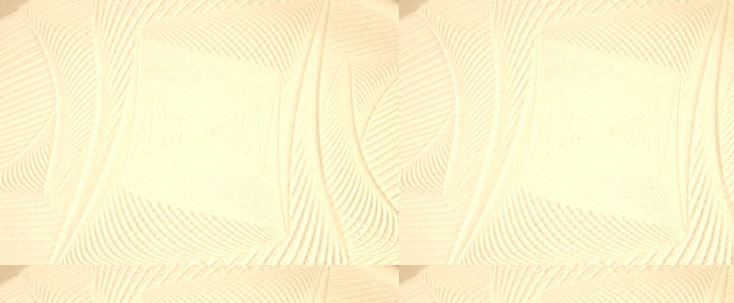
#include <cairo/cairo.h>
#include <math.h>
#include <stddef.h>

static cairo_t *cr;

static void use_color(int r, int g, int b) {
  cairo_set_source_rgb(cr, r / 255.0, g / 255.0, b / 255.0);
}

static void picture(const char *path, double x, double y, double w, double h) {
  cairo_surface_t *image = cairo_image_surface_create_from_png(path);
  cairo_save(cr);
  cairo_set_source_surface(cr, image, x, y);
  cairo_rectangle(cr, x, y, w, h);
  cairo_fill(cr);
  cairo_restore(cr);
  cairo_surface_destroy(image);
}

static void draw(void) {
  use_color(255, 255, 255);
  cairo_paint(cr);
  picture("img_01.png", 0, 0, 734, 303);
}

int main(void) {
  cairo_surface_t *surface = cairo_image_surface_create(CAIRO_FORMAT_RGB24, 734, 303);
  cr = cairo_create(surface);
  cairo_font_options_t *options = cairo_font_options_create();
  cairo_font_options_set_hint_metrics(options, CAIRO_HINT_METRICS_OFF);
  cairo_font_options_set_hint_style(options, CAIRO_HINT_STYLE_NONE);
  cairo_set_font_options(cr, options);
  cairo_set_miter_limit(cr, 4);
  draw();
  cairo_surface_write_to_png(surface, "out.png");
  cairo_font_options_destroy(options);
  cairo_destroy(cr);
  cairo_surface_destroy(surface);
  return 0;
}
